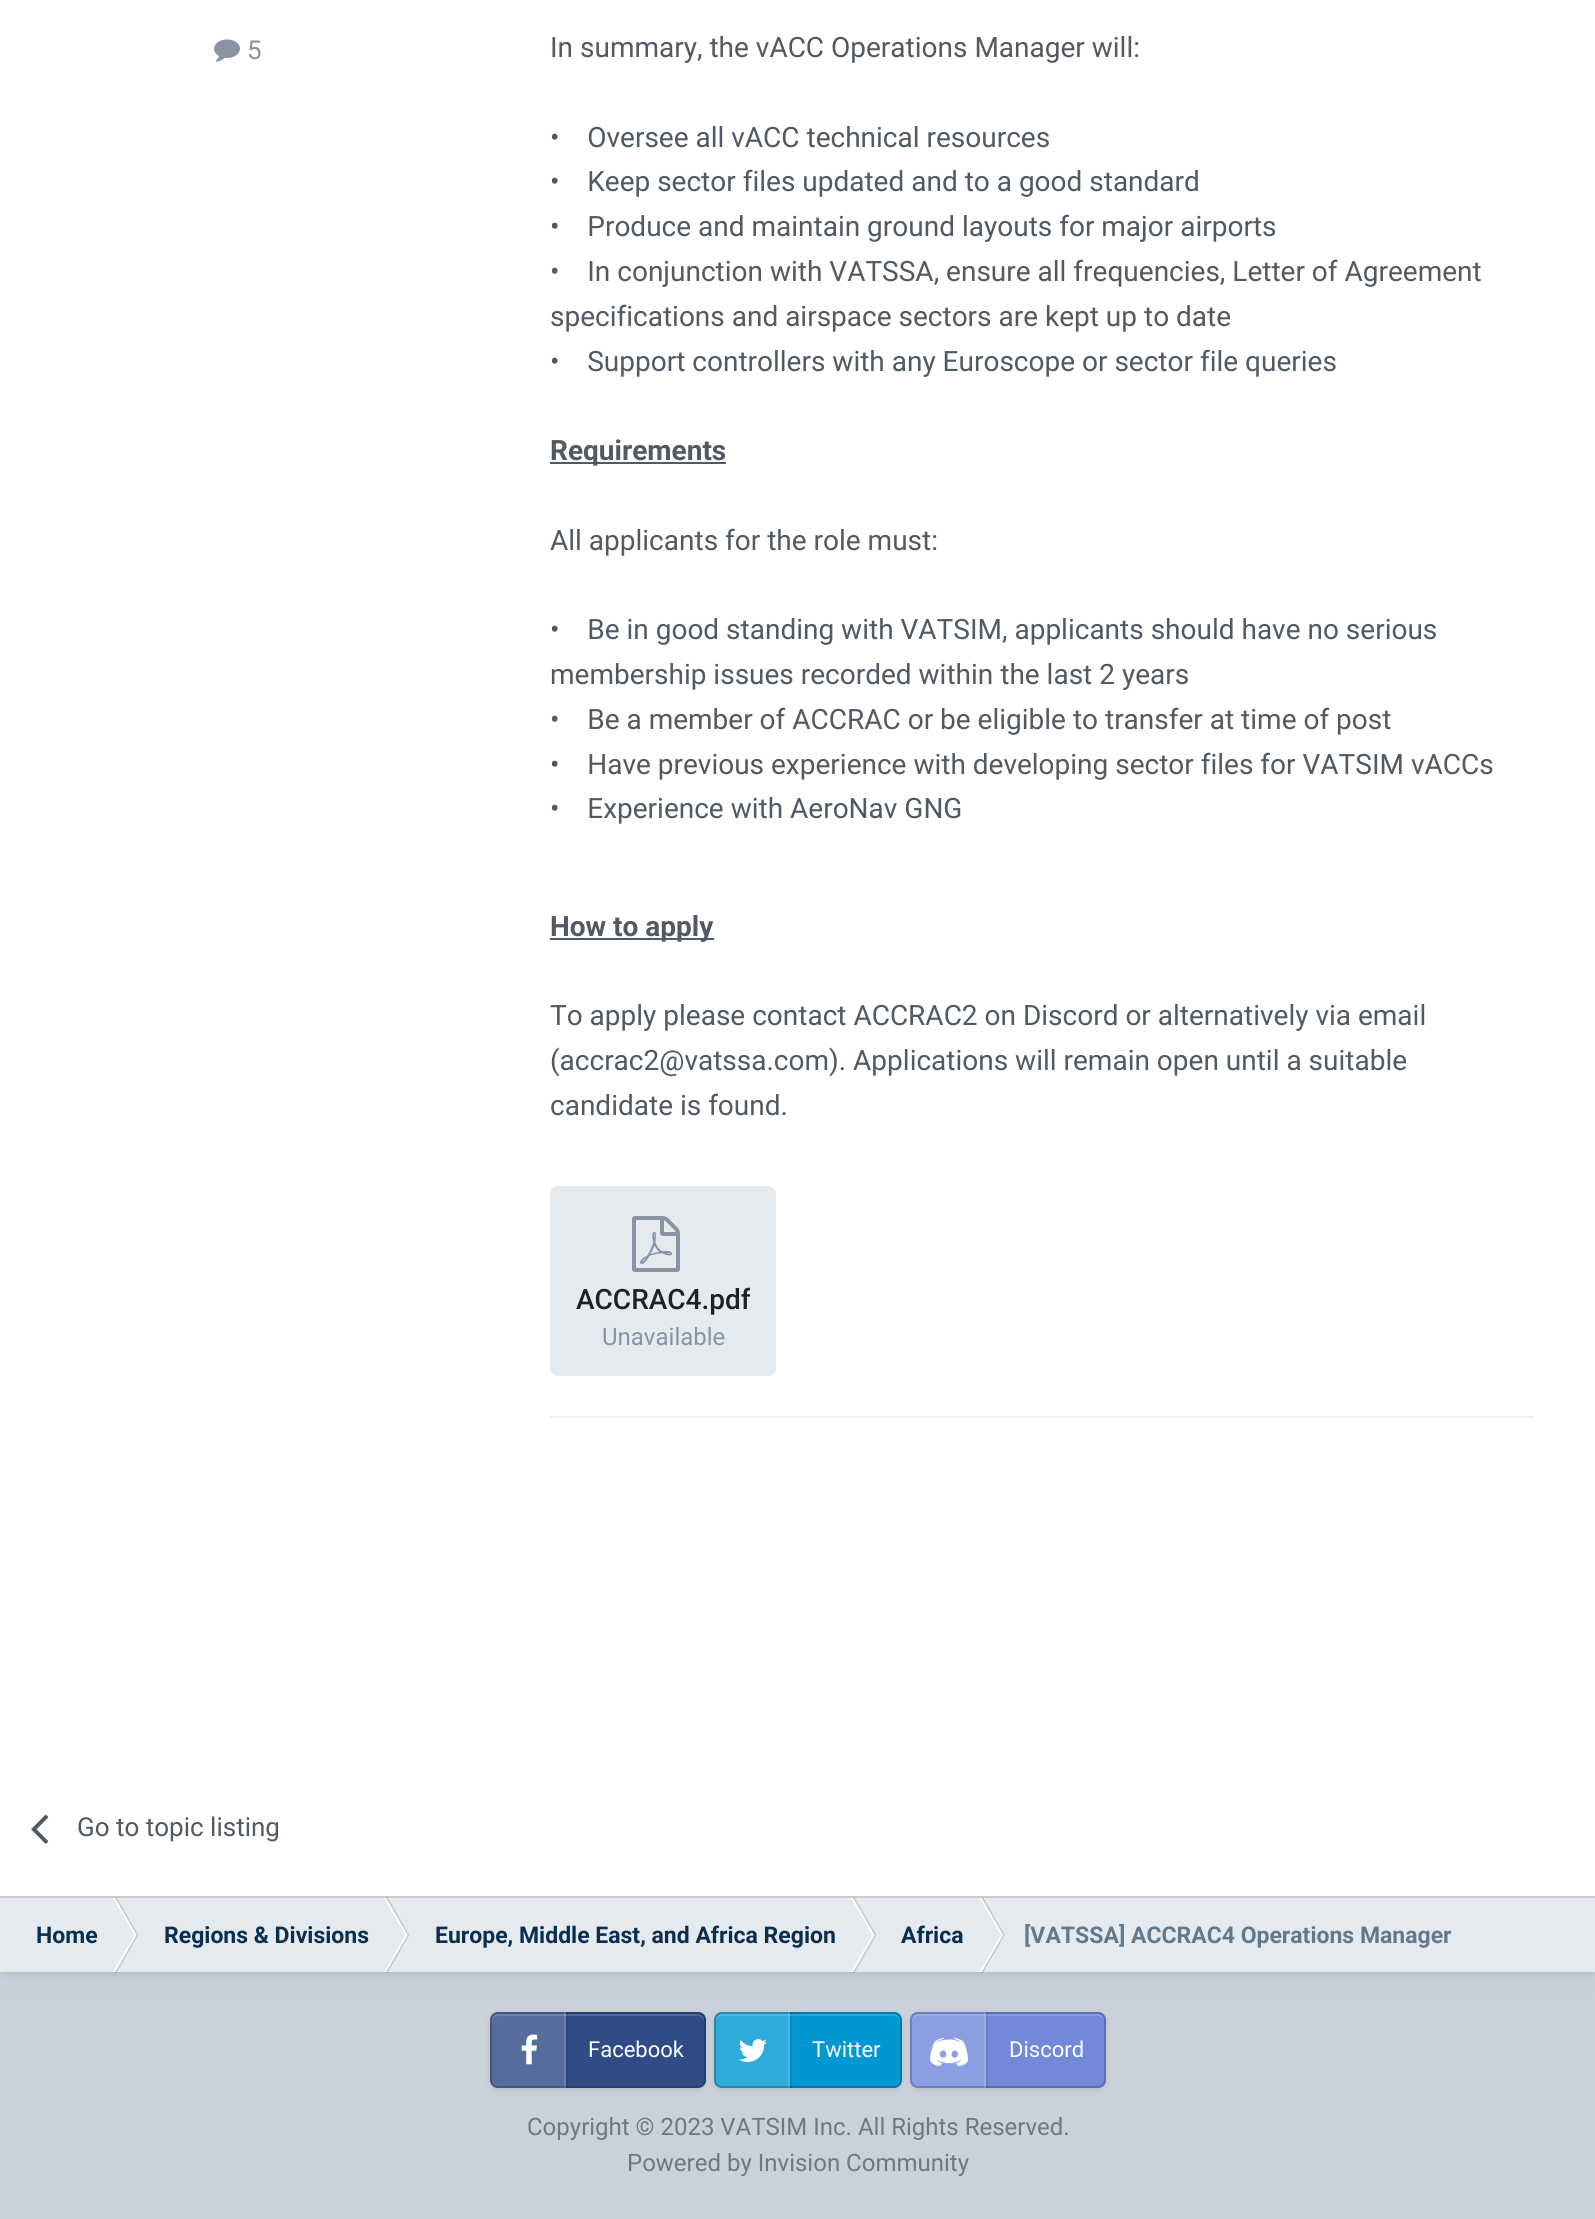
#include <cairo/cairo.h>
#include <math.h>
#include <stddef.h>

static cairo_t *cr;

static void use_color(int r, int g, int b) {
  cairo_set_source_rgb(cr, r / 255.0, g / 255.0, b / 255.0);
}

static void text(double x, double y, const char *s, const char *family, double size, int italic, int bold, int r, int g, int b) {
  cairo_select_font_face(cr, family, italic ? CAIRO_FONT_SLANT_ITALIC : CAIRO_FONT_SLANT_NORMAL,
    bold ? CAIRO_FONT_WEIGHT_BOLD : CAIRO_FONT_WEIGHT_NORMAL);
  cairo_set_font_size(cr, size);
  use_color(r, g, b);
  cairo_move_to(cr, x, y);
  cairo_show_text(cr, s);
}

static void box(double x, double y, double w, double h, int r, int g, int b) {
  use_color(r, g, b);
  cairo_rectangle(cr, x, y, w, h);
  cairo_fill(cr);
}

static void round_rect(double x, double y, double w, double h, double r) {
  cairo_new_sub_path(cr);
  cairo_arc(cr, x + w - r, y + h - r, r, 0, M_PI / 2);
  cairo_arc(cr, x + r, y + h - r, r, M_PI / 2, M_PI);
  cairo_arc(cr, x + r, y + r, r, M_PI, 1.5 * M_PI);
  cairo_arc(cr, x + w - r, y + r, r, 1.5 * M_PI, 2 * M_PI);
  cairo_close_path(cr);
}

static void shadow(double x, double y, double w, double h, double r, double blur, double alpha) {
  cairo_push_group_with_content(cr, CAIRO_CONTENT_ALPHA);
  cairo_set_operator(cr, CAIRO_OPERATOR_SOURCE);
  for (int i = 15; i >= -15 && fmin(w, h) + blur * i / 3 > 0; i -= 2) {
    double e = blur * i / 6;
    cairo_set_source_rgba(cr, 0, 0, 0, alpha * erfc((i - 1) / 8.5) / 2);
    round_rect(x - e, y - e, w + 2 * e, h + 2 * e, fmax(0, fmin(r + e + blur * .6, fmin(w, h) / 2 + e)));
    cairo_fill(cr);
  }
  cairo_pattern_t *soft = cairo_pop_group(cr);
  cairo_mask(cr, soft);
  cairo_pattern_destroy(soft);
}

static void picture(const char *path, double x, double y, double w, double h) {
  cairo_surface_t *image = cairo_image_surface_create_from_png(path);
  cairo_save(cr);
  cairo_set_source_surface(cr, image, x, y);
  cairo_rectangle(cr, x, y, w, h);
  cairo_fill(cr);
  cairo_restore(cr);
  cairo_surface_destroy(image);
}

static void draw(void) {
  use_color(203, 209, 218);
  cairo_paint(cr);
  use_color(0, 0, 0);
  shadow(0, -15, 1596, 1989, 6, 3, 0.08);
  shadow(0, -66, 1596, 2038, 6, 20, 0.06);
  box(0, 0, 1595, 1896, 255, 255, 255);
  picture("img_01.png", 214, 39, 26, 23);
  box(550, 462, 176, 2, 81, 89, 99);
  box(550, 938, 164, 2, 81, 89, 99);
  use_color(228, 234, 238);
  round_rect(551, 1187, 224, 188, 7);
  cairo_fill_preserve(cr);
  cairo_stroke(cr);
  picture("img_02.png", 632, 1216, 48, 56);
  box(550, 1416, 984, 2, 237, 239, 241);
  picture("img_03.png", 31, 1814, 18, 30);
  box(0, 1896, 1595, 76, 228, 234, 238);
  use_color(255, 255, 255);
  cairo_new_path(cr);
  cairo_move_to(cr, 112.5, 1897);
  cairo_line_to(cr, 114.5, 1897);
  cairo_line_to(cr, 136.5, 1935);
  cairo_line_to(cr, 134.5, 1935);
  cairo_close_path(cr);
  cairo_fill(cr);
  cairo_set_source_rgba(cr, 0.318, 0.349, 0.388, 0.2);
  cairo_new_path(cr);
  cairo_move_to(cr, 114.5, 1897);
  cairo_line_to(cr, 116.5, 1897);
  cairo_line_to(cr, 138.5, 1935);
  cairo_line_to(cr, 136.5, 1935);
  cairo_close_path(cr);
  cairo_fill(cr);
  use_color(255, 255, 255);
  cairo_new_path(cr);
  cairo_move_to(cr, 383.5, 1897);
  cairo_line_to(cr, 385.5, 1897);
  cairo_line_to(cr, 407.5, 1935);
  cairo_line_to(cr, 405.5, 1935);
  cairo_close_path(cr);
  cairo_fill(cr);
  cairo_set_source_rgba(cr, 0.318, 0.349, 0.388, 0.2);
  cairo_new_path(cr);
  cairo_move_to(cr, 385.5, 1897);
  cairo_line_to(cr, 387.5, 1897);
  cairo_line_to(cr, 409.5, 1935);
  cairo_line_to(cr, 407.5, 1935);
  cairo_close_path(cr);
  cairo_fill(cr);
  use_color(255, 255, 255);
  cairo_new_path(cr);
  cairo_move_to(cr, 850.5, 1897);
  cairo_line_to(cr, 852.5, 1897);
  cairo_line_to(cr, 874.5, 1935);
  cairo_line_to(cr, 872.5, 1935);
  cairo_close_path(cr);
  cairo_fill(cr);
  cairo_set_source_rgba(cr, 0.318, 0.349, 0.388, 0.2);
  cairo_new_path(cr);
  cairo_move_to(cr, 852.5, 1897);
  cairo_line_to(cr, 854.5, 1897);
  cairo_line_to(cr, 876.5, 1935);
  cairo_line_to(cr, 874.5, 1935);
  cairo_close_path(cr);
  cairo_fill(cr);
  use_color(255, 255, 255);
  cairo_new_path(cr);
  cairo_move_to(cr, 979, 1897);
  cairo_line_to(cr, 981, 1897);
  cairo_line_to(cr, 1003, 1935);
  cairo_line_to(cr, 1001, 1935);
  cairo_close_path(cr);
  cairo_fill(cr);
  cairo_set_source_rgba(cr, 0.318, 0.349, 0.388, 0.2);
  cairo_new_path(cr);
  cairo_move_to(cr, 981, 1897);
  cairo_line_to(cr, 983, 1897);
  cairo_line_to(cr, 1005, 1935);
  cairo_line_to(cr, 1003, 1935);
  cairo_close_path(cr);
  cairo_fill(cr);
  cairo_rectangle(cr, 0, 1896, 1595, 2);
  cairo_fill(cr);
  cairo_save(cr);
  cairo_rectangle(cr, 0, 1896, 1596, 76);
  cairo_clip(cr);
  use_color(255, 255, 255);
  cairo_new_path(cr);
  cairo_move_to(cr, 112.5, 1973);
  cairo_line_to(cr, 114.5, 1973);
  cairo_line_to(cr, 136.5, 1935);
  cairo_line_to(cr, 134.5, 1935);
  cairo_close_path(cr);
  cairo_fill(cr);
  cairo_restore(cr);
  cairo_new_path(cr);
  cairo_move_to(cr, 114.5, 1973);
  cairo_line_to(cr, 116.5, 1973);
  cairo_line_to(cr, 138.5, 1935);
  cairo_line_to(cr, 136.5, 1935);
  cairo_close_path(cr);
  cairo_fill(cr);
  cairo_save(cr);
  cairo_rectangle(cr, 0, 1896, 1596, 76);
  cairo_clip(cr);
  use_color(255, 255, 255);
  cairo_new_path(cr);
  cairo_move_to(cr, 383.5, 1973);
  cairo_line_to(cr, 385.5, 1973);
  cairo_line_to(cr, 407.5, 1935);
  cairo_line_to(cr, 405.5, 1935);
  cairo_close_path(cr);
  cairo_fill(cr);
  cairo_restore(cr);
  cairo_new_path(cr);
  cairo_move_to(cr, 385.5, 1973);
  cairo_line_to(cr, 387.5, 1973);
  cairo_line_to(cr, 409.5, 1935);
  cairo_line_to(cr, 407.5, 1935);
  cairo_close_path(cr);
  cairo_fill(cr);
  cairo_save(cr);
  cairo_rectangle(cr, 0, 1896, 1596, 76);
  cairo_clip(cr);
  use_color(255, 255, 255);
  cairo_new_path(cr);
  cairo_move_to(cr, 850.5, 1973);
  cairo_line_to(cr, 852.5, 1973);
  cairo_line_to(cr, 874.5, 1935);
  cairo_line_to(cr, 872.5, 1935);
  cairo_close_path(cr);
  cairo_fill(cr);
  cairo_restore(cr);
  cairo_new_path(cr);
  cairo_move_to(cr, 852.5, 1973);
  cairo_line_to(cr, 854.5, 1973);
  cairo_line_to(cr, 876.5, 1935);
  cairo_line_to(cr, 874.5, 1935);
  cairo_close_path(cr);
  cairo_fill(cr);
  cairo_save(cr);
  cairo_rectangle(cr, 0, 1896, 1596, 76);
  cairo_clip(cr);
  use_color(255, 255, 255);
  cairo_new_path(cr);
  cairo_move_to(cr, 979, 1973);
  cairo_line_to(cr, 981, 1973);
  cairo_line_to(cr, 1003, 1935);
  cairo_line_to(cr, 1001, 1935);
  cairo_close_path(cr);
  cairo_fill(cr);
  cairo_restore(cr);
  cairo_new_path(cr);
  cairo_move_to(cr, 981, 1973);
  cairo_line_to(cr, 983, 1973);
  cairo_line_to(cr, 1005, 1935);
  cairo_line_to(cr, 1003, 1935);
  cairo_close_path(cr);
  cairo_fill(cr);
  use_color(0, 0, 0);
  shadow(490, 2014, 216, 76, 8, 3, 0.1);
  use_color(48, 76, 135);
  round_rect(490, 2012, 216, 76, 8);
  cairo_fill(cr);
  box(566, 2012, 2, 76, 43, 68, 122);
  cairo_set_source_rgba(cr, 1, 1, 1, 0.18);
  cairo_new_path(cr);
  cairo_move_to(cr, 498, 2012);
  cairo_line_to(cr, 566, 2012);
  cairo_line_to(cr, 566, 2088);
  cairo_line_to(cr, 498, 2088);
  cairo_curve_to(cr, 493.5, 2088, 490, 2084.5, 490, 2080);
  cairo_line_to(cr, 490, 2020);
  cairo_curve_to(cr, 490, 2015.5, 493.5, 2012, 498, 2012);
  cairo_close_path(cr);
  cairo_fill(cr);
  box(564, 2012, 2, 76, 111, 130, 171);
  picture("img_04.png", 521, 2034, 17, 31);
  cairo_set_source_rgba(cr, 1, 1, 1, 0.15);
  cairo_new_path(cr);
  cairo_move_to(cr, 498, 2016);
  cairo_curve_to(cr, 495, 2016, 492, 2019, 492, 2022);
  cairo_line_to(cr, 492, 2020);
  cairo_curve_to(cr, 492, 2017, 495, 2014, 498, 2014);
  cairo_line_to(cr, 698, 2014);
  cairo_curve_to(cr, 701, 2014, 704, 2017, 704, 2020);
  cairo_line_to(cr, 704, 2022);
  cairo_curve_to(cr, 704, 2019, 701, 2016, 698, 2016);
  cairo_close_path(cr);
  cairo_fill(cr);
  round_rect(491, 2013, 214, 74, 7);
  cairo_set_source_rgba(cr, 0, 0, 0, 0.2);
  cairo_stroke(cr);
  use_color(0, 0, 0);
  shadow(714, 2014, 188, 76, 8, 3, 0.1);
  use_color(0, 151, 211);
  round_rect(714, 2012, 188, 76, 8);
  cairo_fill(cr);
  box(790, 2012, 2, 76, 0, 136, 190);
  cairo_set_source_rgba(cr, 1, 1, 1, 0.18);
  cairo_new_path(cr);
  cairo_move_to(cr, 722, 2012);
  cairo_line_to(cr, 790, 2012);
  cairo_line_to(cr, 790, 2088);
  cairo_line_to(cr, 722, 2088);
  cairo_curve_to(cr, 717.5, 2088, 714, 2084.5, 714, 2080);
  cairo_line_to(cr, 714, 2020);
  cairo_curve_to(cr, 714, 2015.5, 717.5, 2012, 722, 2012);
  cairo_close_path(cr);
  cairo_fill(cr);
  box(788, 2012, 2, 76, 77, 183, 224);
  picture("img_05.png", 739, 2039, 28, 23);
  cairo_set_source_rgba(cr, 1, 1, 1, 0.15);
  cairo_new_path(cr);
  cairo_move_to(cr, 722, 2016);
  cairo_curve_to(cr, 719, 2016, 716, 2019, 716, 2022);
  cairo_line_to(cr, 716, 2020);
  cairo_curve_to(cr, 716, 2017, 719, 2014, 722, 2014);
  cairo_line_to(cr, 894, 2014);
  cairo_curve_to(cr, 897, 2014, 900, 2017, 900, 2020);
  cairo_line_to(cr, 900, 2022);
  cairo_curve_to(cr, 900, 2019, 897, 2016, 894, 2016);
  cairo_close_path(cr);
  cairo_fill(cr);
  round_rect(715, 2013, 186, 74, 7);
  cairo_set_source_rgba(cr, 0, 0, 0, 0.2);
  cairo_stroke(cr);
  use_color(0, 0, 0);
  shadow(910, 2014, 196, 76, 8, 3, 0.1);
  use_color(114, 137, 218);
  round_rect(910, 2012, 196, 76, 8);
  cairo_fill(cr);
  box(986, 2012, 2, 76, 103, 123, 196);
  cairo_set_source_rgba(cr, 1, 1, 1, 0.18);
  cairo_new_path(cr);
  cairo_move_to(cr, 918, 2012);
  cairo_line_to(cr, 986, 2012);
  cairo_line_to(cr, 986, 2088);
  cairo_line_to(cr, 918, 2088);
  cairo_curve_to(cr, 913.5, 2088, 910, 2084.5, 910, 2080);
  cairo_line_to(cr, 910, 2020);
  cairo_curve_to(cr, 910, 2015.5, 913.5, 2012, 918, 2012);
  cairo_close_path(cr);
  cairo_fill(cr);
  picture("img_06.png", 930, 2038, 38, 28);
  box(984, 2012, 2, 76, 157, 173, 229);
  cairo_set_source_rgba(cr, 1, 1, 1, 0.15);
  cairo_new_path(cr);
  cairo_move_to(cr, 918, 2016);
  cairo_curve_to(cr, 915, 2016, 912, 2019, 912, 2022);
  cairo_line_to(cr, 912, 2020);
  cairo_curve_to(cr, 912, 2017, 915, 2014, 918, 2014);
  cairo_line_to(cr, 1098, 2014);
  cairo_curve_to(cr, 1101, 2014, 1104, 2017, 1104, 2020);
  cairo_line_to(cr, 1104, 2022);
  cairo_curve_to(cr, 1104, 2019, 1101, 2016, 1098, 2016);
  cairo_close_path(cr);
  cairo_fill(cr);
  round_rect(911, 2013, 194, 74, 7);
  cairo_set_source_rgba(cr, 0, 0, 0, 0.2);
  cairo_stroke(cr);
  text(247, 59, "5", "Roboto", 26, 0, 0, 138, 147, 164);
  text(550, 57, "In summary, the vACC Operations Manager will:", "Roboto", 28, 0, 0, 81, 89, 99);
  text(550, 147, "•    Oversee all vACC technical resources", "Roboto", 28, 0, 0, 81, 89, 99);
  text(550, 191, "•    Keep sector files updated and to a good standard", "Roboto", 28, 0, 0, 81, 89, 99);
  text(550, 236, "•    Produce and maintain ground layouts for major airports", "Roboto", 28, 0, 0, 81, 89, 99);
  text(550, 281, "•    In conjunction with VATSSA, ensure all frequencies, Letter of Agreement", "Roboto", 28, 0, 0, 81, 89, 99);
  text(550, 326, "specifications and airspace sectors are kept up to date", "Roboto", 28, 0, 0, 81, 89, 99);
  text(550, 371, "•    Support controllers with any Euroscope or sector file queries", "Roboto", 28, 0, 0, 81, 89, 99);
  text(550, 460, "Requirements", "Roboto", 28, 0, 1, 81, 89, 99);
  text(550, 550, "All applicants for the role must:", "Roboto", 28, 0, 0, 81, 89, 99);
  text(550, 639, "•    Be in good standing with VATSIM, applicants should have no serious", "Roboto", 28, 0, 0, 81, 89, 99);
  text(550, 684, "membership issues recorded within the last 2 years", "Roboto", 28, 0, 0, 81, 89, 99);
  text(550, 729, "•    Be a member of ACCRAC or be eligible to transfer at time of post", "Roboto", 28, 0, 0, 81, 89, 99);
  text(550, 774, "•    Have previous experience with developing sector files for VATSIM vACCs", "Roboto", 28, 0, 0, 81, 89, 99);
  text(550, 818, "•    Experience with AeroNav GNG", "Roboto", 28, 0, 0, 81, 89, 99);
  text(550, 936, "How to apply", "Roboto", 28, 0, 1, 81, 89, 99);
  text(550, 1025, "To apply please contact ACCRAC2 on Discord or alternatively via email", "Roboto", 28, 0, 0, 81, 89, 99);
  text(550, 1070, "(accrac2@vatssa.com). Applications will remain open until a suitable", "Roboto", 28, 0, 0, 81, 89, 99);
  text(550, 1115, "candidate is found.", "Roboto", 28, 0, 0, 81, 89, 99);
  cairo_save(cr);
  cairo_rectangle(cr, 576, 1280, 174, 36);
  cairo_clip(cr);
  text(576, 1309, "ACCRAC4.pdf", "Roboto Medium", 28, 0, 0, 30, 34, 37);
  cairo_restore(cr);
  text(602, 1345, "Unavailable", "Roboto", 24, 0, 0, 138, 147, 164);
  text(77, 1836, "Go to topic listing", "Roboto", 26, 0, 0, 81, 89, 99);
  text(36, 1943, "Home", "Roboto", 23, 0, 1, 10, 46, 80);
  text(164, 1943, "Regions & Divisions", "Roboto", 23, 0, 1, 10, 46, 80);
  text(435, 1943, "Europe, Middle East, and Africa Region", "Roboto", 23, 0, 1, 10, 46, 80);
  text(901, 1943, "Africa", "Roboto", 23, 0, 1, 10, 46, 80);
  text(1024, 1943, "[VATSSA] ACCRAC4 Operations Manager", "Roboto", 23, 0, 1, 97, 121, 143);
  text(588, 2057, "Facebook", "Roboto", 22, 0, 0, 255, 255, 255);
  text(812, 2057, "Twitter", "Roboto", 22, 0, 0, 255, 255, 255);
  text(1009, 2057, "Discord", "Roboto", 22, 0, 0, 255, 255, 255);
  text(527, 2135, "Copyright © 2023 VATSIM Inc. All Rights Reserved.", "Roboto", 24, 0, 0, 109, 120, 132);
  text(627, 2171, "Powered by Invision Community", "Roboto", 24, 0, 0, 109, 120, 132);
}

int main(void) {
  cairo_surface_t *surface = cairo_image_surface_create(CAIRO_FORMAT_RGB24, 1595, 2219);
  cr = cairo_create(surface);
  cairo_font_options_t *options = cairo_font_options_create();
  cairo_font_options_set_hint_metrics(options, CAIRO_HINT_METRICS_OFF);
  cairo_font_options_set_hint_style(options, CAIRO_HINT_STYLE_NONE);
  cairo_set_font_options(cr, options);
  cairo_set_miter_limit(cr, 4);
  draw();
  cairo_surface_write_to_png(surface, "out.png");
  cairo_font_options_destroy(options);
  cairo_destroy(cr);
  cairo_surface_destroy(surface);
  return 0;
}
